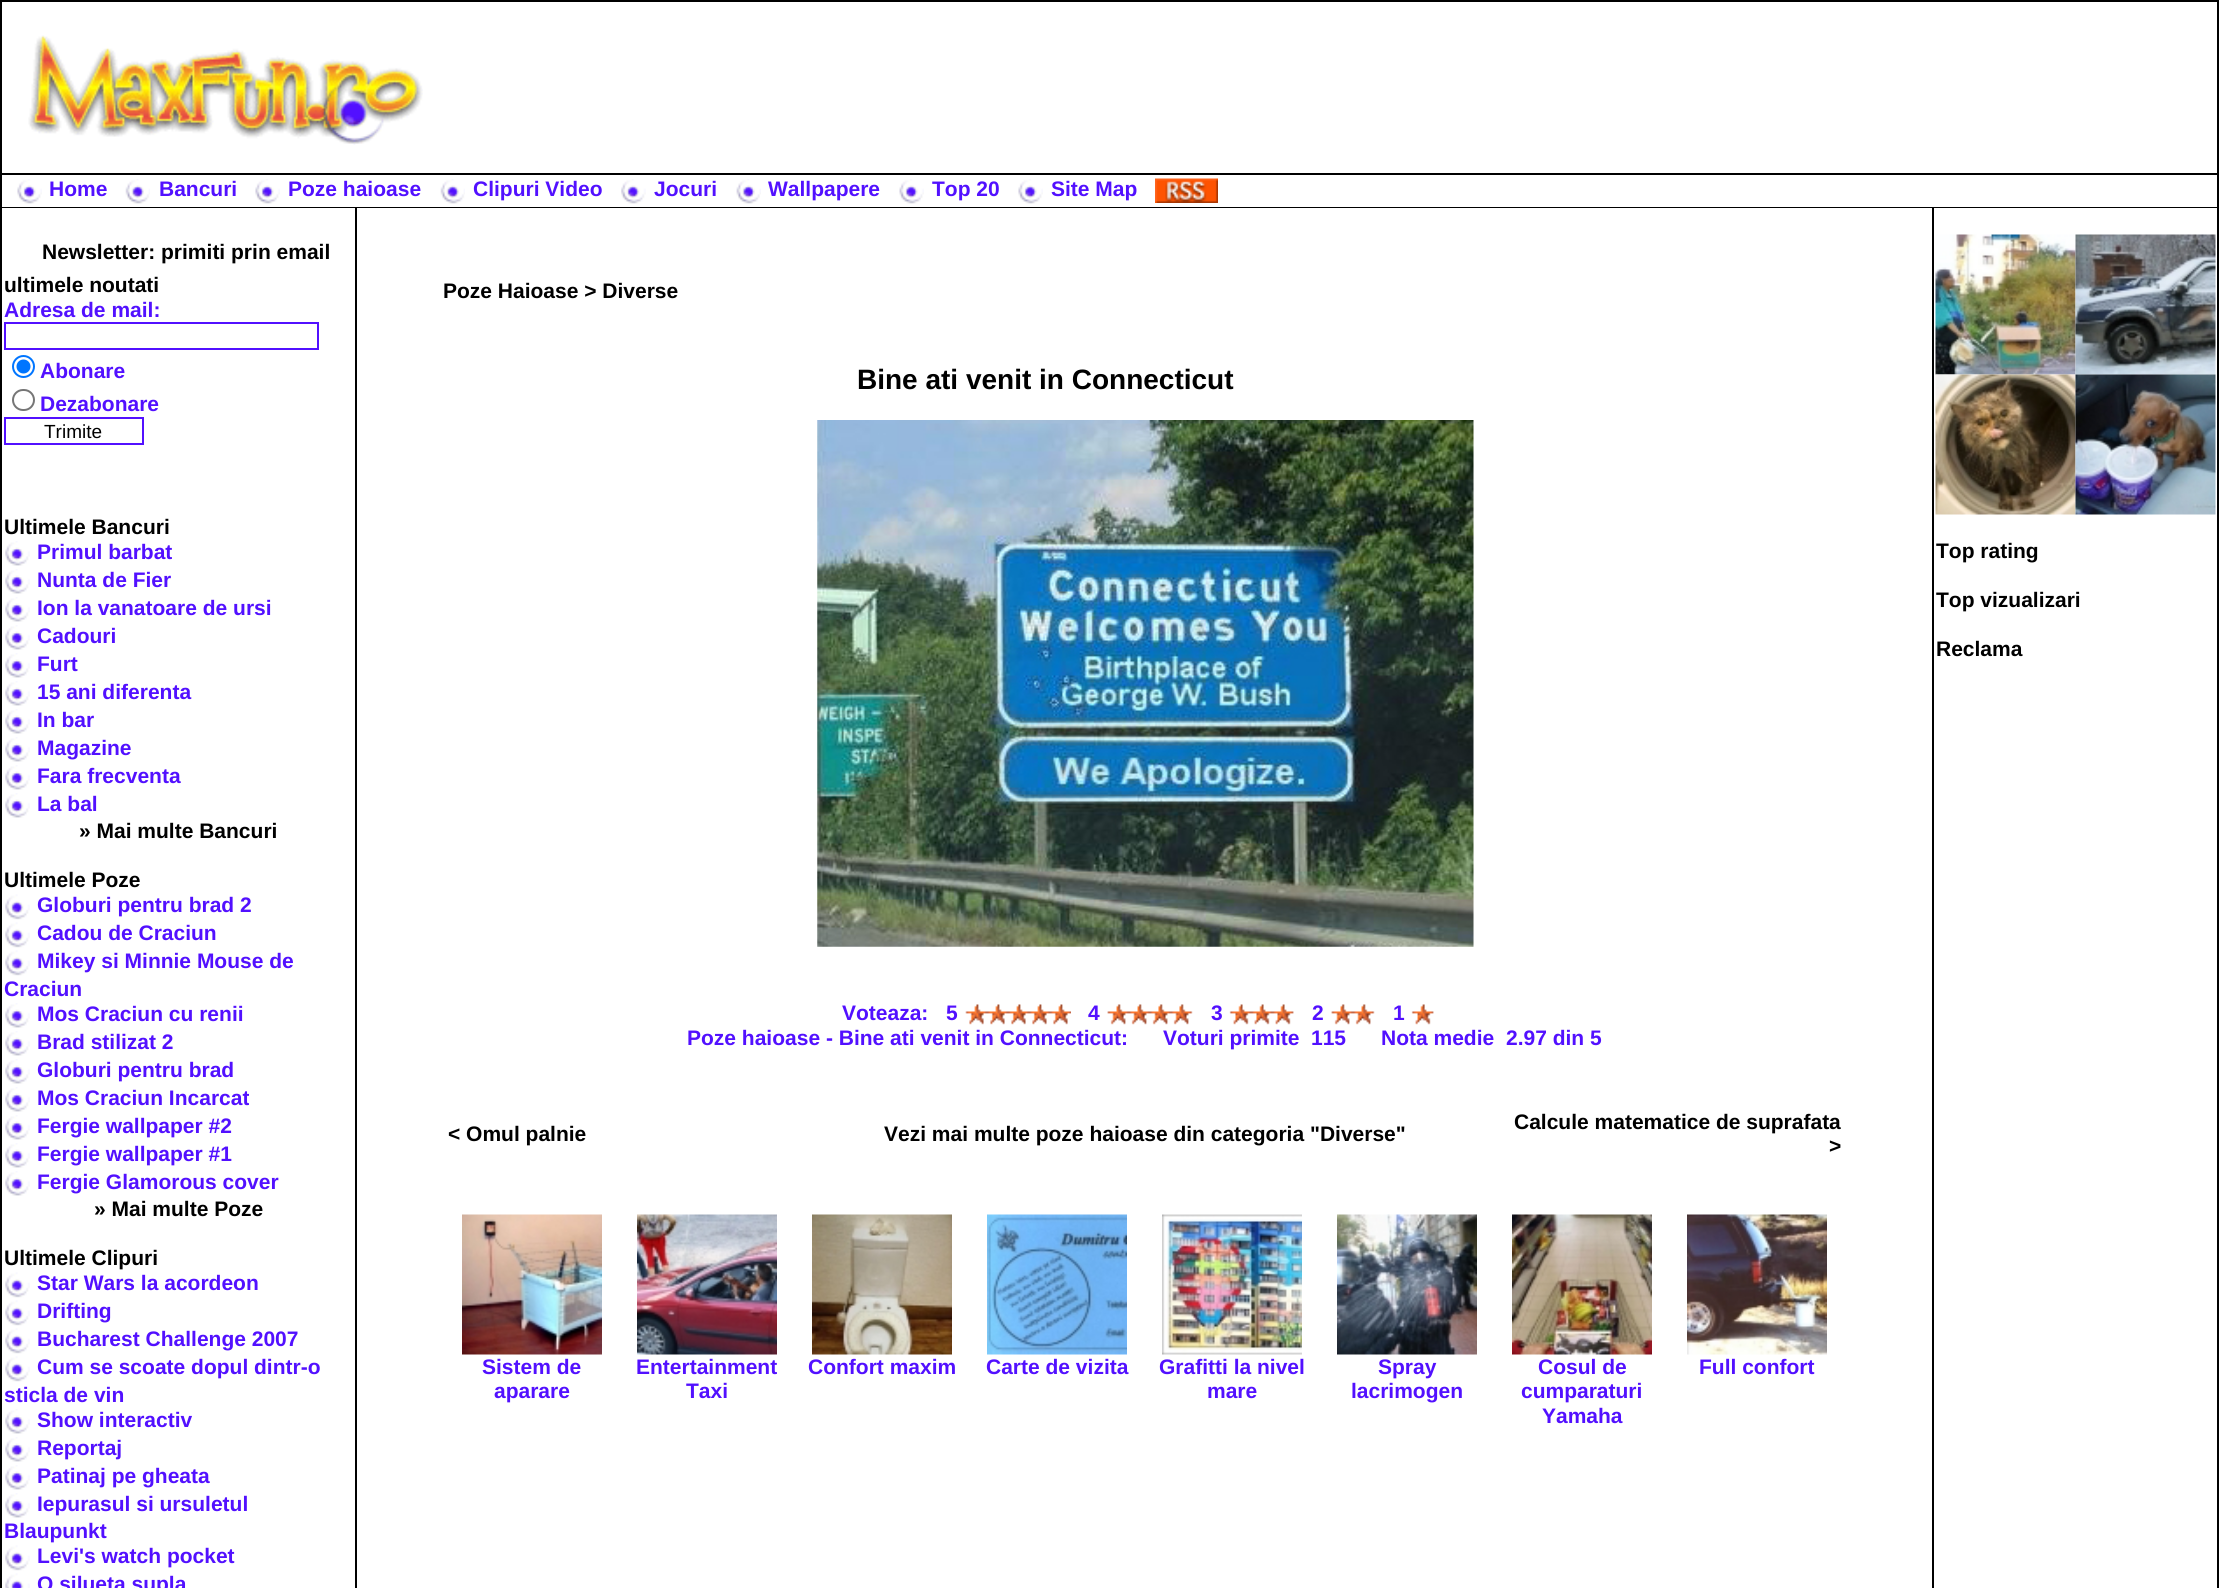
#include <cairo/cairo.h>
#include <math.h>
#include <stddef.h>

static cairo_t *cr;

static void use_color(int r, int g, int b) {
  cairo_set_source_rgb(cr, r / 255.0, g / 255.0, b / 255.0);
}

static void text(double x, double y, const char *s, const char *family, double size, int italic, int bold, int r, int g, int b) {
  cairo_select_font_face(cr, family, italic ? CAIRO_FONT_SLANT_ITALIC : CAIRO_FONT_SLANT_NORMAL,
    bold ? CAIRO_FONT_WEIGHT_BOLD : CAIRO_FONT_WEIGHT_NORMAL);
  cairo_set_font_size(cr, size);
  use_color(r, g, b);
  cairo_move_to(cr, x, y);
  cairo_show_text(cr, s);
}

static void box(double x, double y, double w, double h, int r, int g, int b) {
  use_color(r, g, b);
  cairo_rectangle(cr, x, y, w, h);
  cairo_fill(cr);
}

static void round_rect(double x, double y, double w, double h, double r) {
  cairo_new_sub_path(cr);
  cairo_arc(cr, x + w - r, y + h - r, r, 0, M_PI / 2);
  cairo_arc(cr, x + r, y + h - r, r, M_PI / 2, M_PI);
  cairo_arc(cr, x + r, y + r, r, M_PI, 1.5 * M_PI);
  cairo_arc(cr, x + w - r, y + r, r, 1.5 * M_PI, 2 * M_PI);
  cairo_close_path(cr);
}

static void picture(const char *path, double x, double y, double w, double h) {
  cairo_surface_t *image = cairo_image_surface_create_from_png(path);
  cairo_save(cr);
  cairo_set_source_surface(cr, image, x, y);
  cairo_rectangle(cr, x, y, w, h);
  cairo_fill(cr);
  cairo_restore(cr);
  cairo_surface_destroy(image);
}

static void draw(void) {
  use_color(0, 0, 0);
  cairo_paint(cr);
  box(2, 2, 2215, 171, 255, 255, 255);
  picture("img_01.png", 28, 35, 395, 110);
  box(2, 175, 2215, 32, 255, 255, 255);
  picture("img_02.png", 17, 179, 25, 25);
  picture("img_03.png", 125, 179, 25, 25);
  picture("img_02.png", 255, 179, 25, 25);
  picture("img_03.png", 440, 179, 25, 25);
  picture("img_04.png", 621, 179, 25, 25);
  picture("img_05.png", 736, 179, 25, 25);
  picture("img_06.png", 899, 179, 25, 25);
  picture("img_02.png", 1018, 179, 25, 25);
  picture("img_07.png", 1155, 178, 63, 25);
  box(2, 208, 353, 1380, 255, 255, 255);
  cairo_rectangle(cr, 5, 323, 313, 26);
  use_color(82, 16, 255);
  cairo_stroke(cr);
  cairo_arc(cr, 23.5, 366.5, 10.5, 0, 2 * M_PI);
  use_color(0, 117, 255);
  cairo_stroke(cr);
  cairo_arc(cr, 23.5, 366.5, 7, 0, 2 * M_PI);
  cairo_fill(cr);
  round_rect(13, 390, 21, 20, 10);
  use_color(118, 118, 118);
  cairo_stroke(cr);
  cairo_rectangle(cr, 5, 418, 138, 26);
  use_color(82, 16, 255);
  cairo_stroke(cr);
  picture("img_08.png", 5, 541, 25, 25);
  picture("img_08.png", 5, 569, 25, 25);
  picture("img_08.png", 5, 597, 25, 25);
  picture("img_08.png", 5, 625, 25, 25);
  picture("img_08.png", 5, 653, 25, 25);
  picture("img_08.png", 5, 681, 25, 25);
  picture("img_08.png", 5, 709, 25, 25);
  picture("img_08.png", 5, 737, 25, 25);
  picture("img_08.png", 5, 765, 25, 25);
  picture("img_08.png", 5, 793, 25, 25);
  picture("img_09.png", 5, 894, 25, 26);
  picture("img_09.png", 5, 922, 25, 26);
  picture("img_09.png", 5, 950, 25, 26);
  picture("img_08.png", 5, 1003, 25, 25);
  picture("img_08.png", 5, 1031, 25, 25);
  picture("img_08.png", 5, 1059, 25, 25);
  picture("img_08.png", 5, 1087, 25, 25);
  picture("img_08.png", 5, 1115, 25, 25);
  picture("img_08.png", 5, 1143, 25, 25);
  picture("img_08.png", 5, 1171, 25, 25);
  picture("img_09.png", 5, 1272, 25, 26);
  picture("img_09.png", 5, 1300, 25, 26);
  picture("img_09.png", 5, 1328, 25, 26);
  picture("img_09.png", 5, 1356, 25, 26);
  picture("img_08.png", 5, 1409, 25, 25);
  picture("img_08.png", 5, 1437, 25, 25);
  picture("img_08.png", 5, 1465, 25, 25);
  picture("img_08.png", 5, 1493, 25, 25);
  picture("img_09.png", 5, 1545, 25, 26);
  picture("img_10.png", 5, 1573, 25, 15);
  box(357, 208, 1575, 1380, 255, 255, 255);
  picture("img_11.png", 817, 420, 657, 527);
  picture("img_12.png", 965, 1004, 106, 21);
  picture("img_13.png", 1107, 1004, 86, 21);
  picture("img_14.png", 1229, 1004, 65, 21);
  picture("img_15.png", 1331, 1004, 44, 21);
  picture("img_16.png", 1411, 1004, 23, 21);
  picture("img_17.png", 462, 1214, 140, 141);
  picture("img_18.png", 637, 1214, 140, 141);
  picture("img_19.png", 812, 1214, 140, 141);
  picture("img_20.png", 987, 1214, 140, 141);
  picture("img_21.png", 1162, 1214, 140, 141);
  picture("img_22.png", 1337, 1214, 140, 141);
  picture("img_23.png", 1512, 1214, 140, 141);
  picture("img_24.png", 1687, 1214, 140, 141);
  box(1934, 208, 283, 1380, 255, 255, 255);
  picture("img_25.png", 1935, 234, 141, 141);
  picture("img_26.png", 2075, 234, 141, 141);
  picture("img_27.png", 1935, 374, 141, 141);
  picture("img_28.png", 2075, 374, 141, 141);
  text(49, 196, "Home", "Liberation Sans", 21, 0, 1, 82, 16, 255);
  text(159, 196, "Bancuri", "Liberation Sans", 21, 0, 1, 82, 16, 255);
  text(288, 196, "Poze haioase", "Liberation Sans", 21, 0, 1, 82, 16, 255);
  text(473, 196, "Clipuri Video", "Liberation Sans", 21, 0, 1, 82, 16, 255);
  text(654, 196, "Jocuri", "Liberation Sans", 21, 0, 1, 82, 16, 255);
  text(768, 196, "Wallpapere", "Liberation Sans", 21, 0, 1, 82, 16, 255);
  text(932, 196, "Top 20", "Liberation Sans", 21, 0, 1, 82, 16, 255);
  text(1051, 196, "Site Map", "Liberation Sans", 21, 0, 1, 82, 16, 255);
  text(42, 259, "Newsletter: primiti prin email", "Liberation Sans", 21, 0, 1, 0, 0, 0);
  text(4, 292, "ultimele noutati", "Liberation Sans", 21, 0, 1, 0, 0, 0);
  text(4, 317, "Adresa de mail:", "Liberation Sans", 21, 0, 1, 82, 16, 255);
  text(40, 378, "Abonare", "Liberation Sans", 21, 0, 1, 82, 16, 255);
  text(40, 411, "Dezabonare", "Liberation Sans", 21, 0, 1, 82, 16, 255);
  text(44, 438, "Trimite", "Liberation Sans", 19, 0, 0, 0, 0, 0);
  text(4, 534, "Ultimele Bancuri", "Liberation Sans", 21, 0, 1, 0, 0, 0);
  text(37, 559, "Primul barbat", "Liberation Sans", 21, 0, 1, 82, 16, 255);
  text(37, 587, "Nunta de Fier", "Liberation Sans", 21, 0, 1, 82, 16, 255);
  text(37, 615, "Ion la vanatoare de ursi", "Liberation Sans", 21, 0, 1, 82, 16, 255);
  text(37, 643, "Cadouri", "Liberation Sans", 21, 0, 1, 82, 16, 255);
  text(37, 671, "Furt", "Liberation Sans", 21, 0, 1, 82, 16, 255);
  text(37, 699, "15 ani diferenta", "Liberation Sans", 21, 0, 1, 82, 16, 255);
  text(37, 727, "In bar", "Liberation Sans", 21, 0, 1, 82, 16, 255);
  text(37, 755, "Magazine", "Liberation Sans", 21, 0, 1, 82, 16, 255);
  text(37, 783, "Fara frecventa", "Liberation Sans", 21, 0, 1, 82, 16, 255);
  text(37, 811, "La bal", "Liberation Sans", 21, 0, 1, 82, 16, 255);
  text(79, 838, "» Mai multe Bancuri", "Liberation Sans", 21, 0, 1, 0, 0, 0);
  text(4, 887, "Ultimele Poze", "Liberation Sans", 21, 0, 1, 0, 0, 0);
  text(37, 912, "Globuri pentru brad 2", "Liberation Sans", 21, 0, 1, 82, 16, 255);
  text(37, 940, "Cadou de Craciun", "Liberation Sans", 21, 0, 1, 82, 16, 255);
  text(37, 968, "Mikey si Minnie Mouse de", "Liberation Sans", 21, 0, 1, 82, 16, 255);
  text(4, 996, "Craciun", "Liberation Sans", 21, 0, 1, 82, 16, 255);
  text(37, 1021, "Mos Craciun cu renii", "Liberation Sans", 21, 0, 1, 82, 16, 255);
  text(37, 1049, "Brad stilizat 2", "Liberation Sans", 21, 0, 1, 82, 16, 255);
  text(37, 1077, "Globuri pentru brad", "Liberation Sans", 21, 0, 1, 82, 16, 255);
  text(37, 1105, "Mos Craciun Incarcat", "Liberation Sans", 21, 0, 1, 82, 16, 255);
  text(37, 1133, "Fergie wallpaper #2", "Liberation Sans", 21, 0, 1, 82, 16, 255);
  text(37, 1161, "Fergie wallpaper #1", "Liberation Sans", 21, 0, 1, 82, 16, 255);
  text(37, 1189, "Fergie Glamorous cover", "Liberation Sans", 21, 0, 1, 82, 16, 255);
  text(94, 1216, "» Mai multe Poze", "Liberation Sans", 21, 0, 1, 0, 0, 0);
  text(4, 1265, "Ultimele Clipuri", "Liberation Sans", 21, 0, 1, 0, 0, 0);
  text(37, 1290, "Star Wars la acordeon", "Liberation Sans", 21, 0, 1, 82, 16, 255);
  text(37, 1318, "Drifting", "Liberation Sans", 21, 0, 1, 82, 16, 255);
  text(37, 1346, "Bucharest Challenge 2007", "Liberation Sans", 21, 0, 1, 82, 16, 255);
  text(37, 1374, "Cum se scoate dopul dintr-o", "Liberation Sans", 21, 0, 1, 82, 16, 255);
  text(4, 1402, "sticla de vin", "Liberation Sans", 21, 0, 1, 82, 16, 255);
  text(37, 1427, "Show interactiv", "Liberation Sans", 21, 0, 1, 82, 16, 255);
  text(37, 1455, "Reportaj", "Liberation Sans", 21, 0, 1, 82, 16, 255);
  text(37, 1483, "Patinaj pe gheata", "Liberation Sans", 21, 0, 1, 82, 16, 255);
  text(37, 1511, "Iepurasul si ursuletul", "Liberation Sans", 21, 0, 1, 82, 16, 255);
  text(4, 1538, "Blaupunkt", "Liberation Sans", 21, 0, 1, 82, 16, 255);
  text(37, 1563, "Levi's watch pocket", "Liberation Sans", 21, 0, 1, 82, 16, 255);
  text(37, 1591, "O silueta supla", "Liberation Sans", 21, 0, 1, 82, 16, 255);
  text(443, 298, "Poze Haioase > Diverse", "Liberation Sans", 21, 0, 1, 0, 0, 0);
  text(857, 389, "Bine ati venit in Connecticut", "Liberation Sans", 28, 0, 1, 0, 0, 0);
  text(842, 1020, "Voteaza:", "Liberation Sans", 21, 0, 1, 82, 16, 255);
  text(946, 1020, "5", "Liberation Sans", 21, 0, 1, 82, 16, 255);
  text(1088, 1020, "4", "Liberation Sans", 21, 0, 1, 82, 16, 255);
  text(1211, 1020, "3", "Liberation Sans", 21, 0, 1, 82, 16, 255);
  text(1312, 1020, "2", "Liberation Sans", 21, 0, 1, 82, 16, 255);
  text(1393, 1020, "1", "Liberation Sans", 21, 0, 1, 82, 16, 255);
  text(687, 1045, "Poze haioase - Bine ati venit in Connecticut:", "Liberation Sans", 21, 0, 1, 82, 16, 255);
  text(1163, 1045, "Voturi primite", "Liberation Sans", 21, 0, 1, 82, 16, 255);
  text(1311, 1045, "115", "Liberation Sans", 21, 0, 1, 82, 16, 255);
  text(1381, 1045, "Nota medie", "Liberation Sans", 21, 0, 1, 82, 16, 255);
  text(1506, 1045, "2.97 din 5", "Liberation Sans", 21, 0, 1, 82, 16, 255);
  text(448, 1141, "< Omul palnie", "Liberation Sans", 21, 0, 1, 0, 0, 0);
  text(884, 1141, "Vezi mai multe poze haioase din categoria \"Diverse\"", "Liberation Sans", 21, 0, 1, 0, 0, 0);
  text(1514, 1129, "Calcule matematice de suprafata", "Liberation Sans", 21, 0, 1, 0, 0, 0);
  text(1829, 1153, ">", "Liberation Sans", 21, 0, 1, 0, 0, 0);
  text(482, 1374, "Sistem de", "Liberation Sans", 21, 0, 1, 82, 16, 255);
  text(494, 1398, "aparare", "Liberation Sans", 21, 0, 1, 82, 16, 255);
  text(636, 1374, "Entertainment", "Liberation Sans", 21, 0, 1, 82, 16, 255);
  text(686, 1398, "Taxi", "Liberation Sans", 21, 0, 1, 82, 16, 255);
  text(808, 1374, "Confort maxim", "Liberation Sans", 21, 0, 1, 82, 16, 255);
  text(986, 1374, "Carte de vizita", "Liberation Sans", 21, 0, 1, 82, 16, 255);
  text(1159, 1374, "Grafitti la nivel", "Liberation Sans", 21, 0, 1, 82, 16, 255);
  text(1207, 1398, "mare", "Liberation Sans", 21, 0, 1, 82, 16, 255);
  text(1378, 1374, "Spray", "Liberation Sans", 21, 0, 1, 82, 16, 255);
  text(1351, 1398, "lacrimogen", "Liberation Sans", 21, 0, 1, 82, 16, 255);
  text(1538, 1374, "Cosul de", "Liberation Sans", 21, 0, 1, 82, 16, 255);
  text(1521, 1398, "cumparaturi", "Liberation Sans", 21, 0, 1, 82, 16, 255);
  text(1542, 1423, "Yamaha", "Liberation Sans", 21, 0, 1, 82, 16, 255);
  text(1699, 1374, "Full confort", "Liberation Sans", 21, 0, 1, 82, 16, 255);
  text(1936, 558, "Top rating", "Liberation Sans", 21, 0, 1, 0, 0, 0);
  text(1936, 607, "Top vizualizari", "Liberation Sans", 21, 0, 1, 0, 0, 0);
  text(1936, 656, "Reclama", "Liberation Sans", 21, 0, 1, 0, 0, 0);
}

int main(void) {
  cairo_surface_t *surface = cairo_image_surface_create(CAIRO_FORMAT_RGB24, 2219, 1588);
  cr = cairo_create(surface);
  cairo_font_options_t *options = cairo_font_options_create();
  cairo_font_options_set_hint_metrics(options, CAIRO_HINT_METRICS_OFF);
  cairo_font_options_set_hint_style(options, CAIRO_HINT_STYLE_NONE);
  cairo_set_font_options(cr, options);
  cairo_set_miter_limit(cr, 4);
  draw();
  cairo_surface_write_to_png(surface, "out.png");
  cairo_font_options_destroy(options);
  cairo_destroy(cr);
  cairo_surface_destroy(surface);
  return 0;
}
